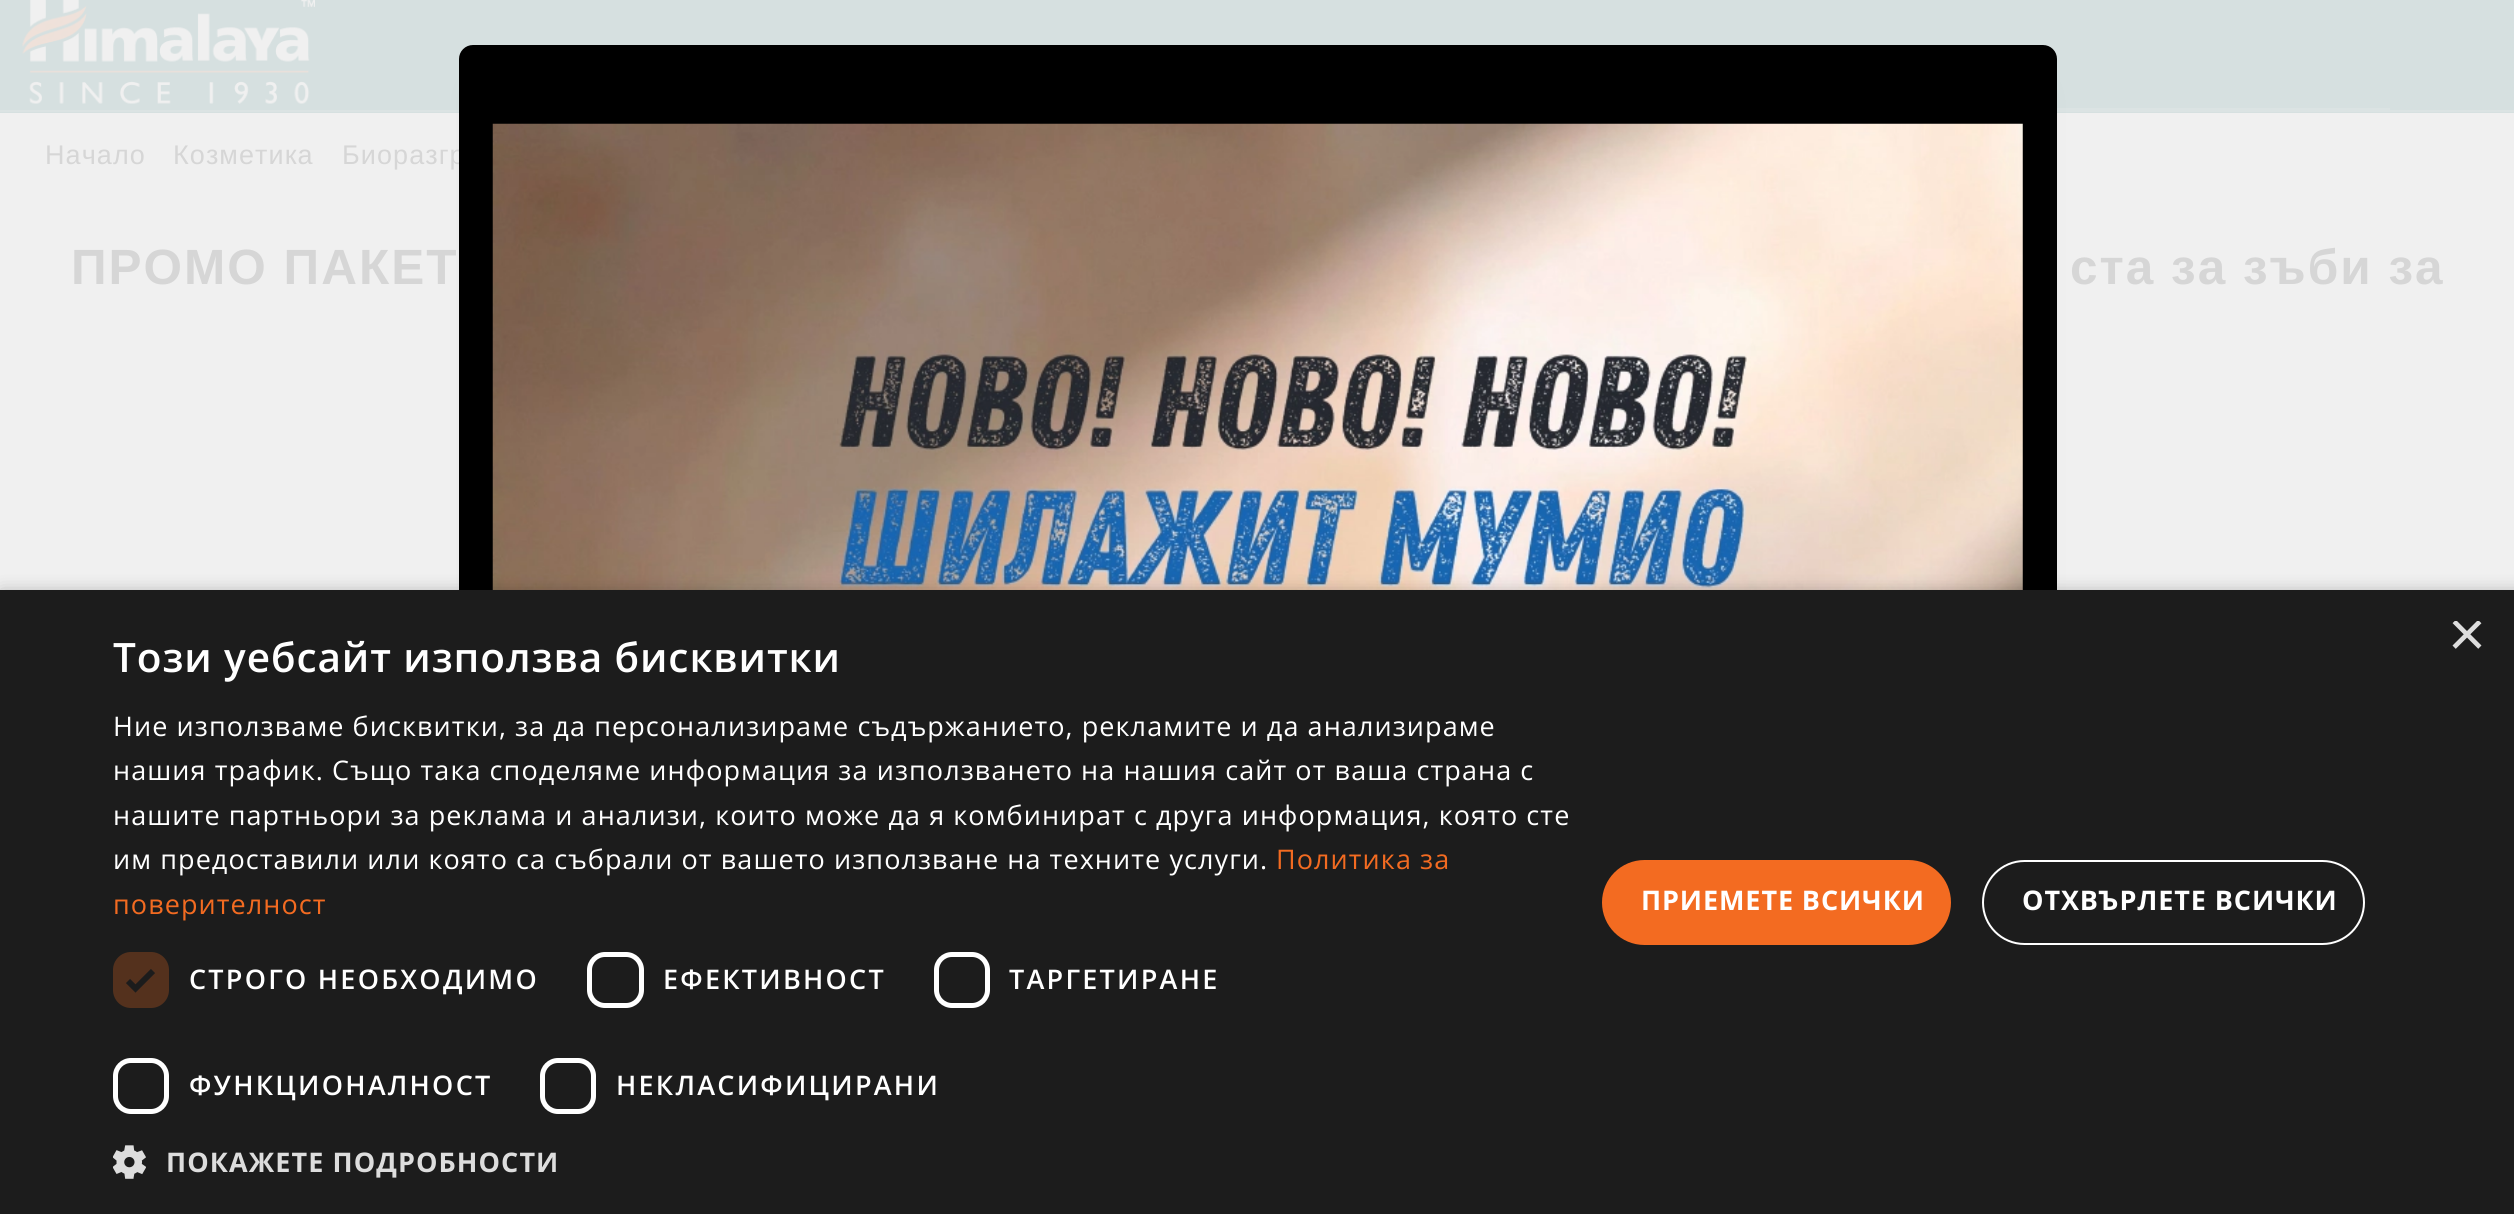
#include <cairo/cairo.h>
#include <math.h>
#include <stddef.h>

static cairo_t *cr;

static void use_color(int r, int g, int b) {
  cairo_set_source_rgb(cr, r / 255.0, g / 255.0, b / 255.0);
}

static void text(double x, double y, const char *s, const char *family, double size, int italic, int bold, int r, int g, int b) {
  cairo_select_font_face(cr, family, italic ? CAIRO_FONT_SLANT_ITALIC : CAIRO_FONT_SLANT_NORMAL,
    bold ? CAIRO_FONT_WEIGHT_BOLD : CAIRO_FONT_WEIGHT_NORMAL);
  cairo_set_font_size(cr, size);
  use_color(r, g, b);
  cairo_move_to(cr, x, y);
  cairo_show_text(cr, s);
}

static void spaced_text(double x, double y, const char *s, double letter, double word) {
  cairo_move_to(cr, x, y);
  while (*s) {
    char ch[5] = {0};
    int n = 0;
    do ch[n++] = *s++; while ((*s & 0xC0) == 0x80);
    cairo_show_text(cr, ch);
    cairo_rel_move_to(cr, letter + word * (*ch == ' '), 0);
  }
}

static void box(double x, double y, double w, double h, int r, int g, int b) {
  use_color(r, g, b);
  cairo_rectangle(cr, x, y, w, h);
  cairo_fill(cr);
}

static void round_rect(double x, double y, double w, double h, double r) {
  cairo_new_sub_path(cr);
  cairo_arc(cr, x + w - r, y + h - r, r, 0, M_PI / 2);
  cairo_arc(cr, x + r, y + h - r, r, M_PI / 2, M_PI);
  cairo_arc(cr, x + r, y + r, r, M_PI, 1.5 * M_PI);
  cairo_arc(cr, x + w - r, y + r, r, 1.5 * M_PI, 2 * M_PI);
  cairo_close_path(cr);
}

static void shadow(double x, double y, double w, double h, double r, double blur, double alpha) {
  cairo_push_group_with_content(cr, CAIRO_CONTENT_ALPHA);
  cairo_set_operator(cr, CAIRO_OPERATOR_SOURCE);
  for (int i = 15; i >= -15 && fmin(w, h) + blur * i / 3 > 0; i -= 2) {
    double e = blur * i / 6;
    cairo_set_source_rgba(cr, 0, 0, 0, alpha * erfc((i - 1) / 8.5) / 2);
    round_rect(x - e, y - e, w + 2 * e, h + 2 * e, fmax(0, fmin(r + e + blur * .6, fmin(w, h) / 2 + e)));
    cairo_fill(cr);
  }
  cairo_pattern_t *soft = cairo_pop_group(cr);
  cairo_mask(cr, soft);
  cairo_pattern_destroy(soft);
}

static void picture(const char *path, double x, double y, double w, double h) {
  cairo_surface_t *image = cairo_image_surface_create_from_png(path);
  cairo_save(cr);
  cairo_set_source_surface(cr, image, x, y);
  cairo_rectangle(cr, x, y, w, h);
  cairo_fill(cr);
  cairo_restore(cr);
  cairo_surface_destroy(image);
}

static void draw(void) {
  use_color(240, 240, 240);
  cairo_paint(cr);
  box(0, 0, 2514, 113, 214, 224, 224);
  box(0, 110, 2514, 2, 219, 227, 227);
  box(2057, 108, 333, 2, 219, 227, 227);
  use_color(68, 68, 68);
  shadow(493, 95, 1530, 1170, 0, 17, 1);
  picture("img_02.png", 22, 0, 293, 104);
  cairo_select_font_face(cr, "Liberation Sans", CAIRO_FONT_SLANT_NORMAL, CAIRO_FONT_WEIGHT_NORMAL);
  cairo_set_font_size(cr, 27);
  use_color(214, 214, 214);
  spaced_text(45, 164, "Начало", 1.08, 0);
  spaced_text(173, 164, "Козметика", 1.08, 0);
  spaced_text(342, 164, "Биоразгр", 1.08, 0);
  use_color(0, 0, 0);
  round_rect(459, 45, 1598, 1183, 14);
  cairo_fill(cr);
  picture("img_01.png", 492, 123, 1531, 467);
  cairo_select_font_face(cr, "Liberation Sans", CAIRO_FONT_SLANT_NORMAL, CAIRO_FONT_WEIGHT_BOLD);
  cairo_set_font_size(cr, 49.5);
  use_color(214, 214, 214);
  spaced_text(71, 284, "ПРОМО ПАКЕТ", 2, 0);
  spaced_text(2070, 284, "ста за зъби за", 2, 0);
  use_color(0, 0, 0);
  shadow(2, 594, 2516, 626, 0, 9, 0.35);
  box(0, 590, 2514, 624, 28, 28, 28);
  cairo_save(cr);
  cairo_rectangle(cr, 2448, 621, 34, 34);
  cairo_clip(cr);
  text(2448, 656, "×", "Liberation Sans", 65, 0, 0, 221, 221, 221);
  cairo_restore(cr);
  cairo_select_font_face(cr, "Open Sans SemiBold", CAIRO_FONT_SLANT_NORMAL, CAIRO_FONT_WEIGHT_NORMAL);
  cairo_set_font_size(cr, 40.5);
  use_color(255, 255, 255);
  spaced_text(113, 672, "Този уебсайт използва бисквитки", 0.9, 0);
  cairo_select_font_face(cr, "Open Sans", CAIRO_FONT_SLANT_NORMAL, CAIRO_FONT_WEIGHT_NORMAL);
  cairo_set_font_size(cr, 27);
  spaced_text(113, 736, "Ние използваме бисквитки, за да персонализираме съдържанието, рекламите и да анализираме", 1.08, 0);
  spaced_text(113, 780, "нашия трафик. Също така споделяме информация за използването на нашия сайт от ваша страна с", 1.08, 0);
  spaced_text(113, 825, "нашите партньори за реклама и анализи, които може да я комбинират с друга информация, която сте", 1.08, 0);
  spaced_text(113, 869, "им предоставили или която са събрали от вашето използване на техните услуги.", 1.08, 0);
  use_color(243, 107, 33);
  spaced_text(1276, 869, "Политика за", 1.08, 0);
  spaced_text(113, 914, "поверителност", 1.08, 0);
  use_color(84, 49, 29);
  round_rect(113, 952, 56, 56, 18);
  cairo_fill(cr);
  cairo_new_path(cr);
  cairo_move_to(cr, 128, 981);
  cairo_line_to(cr, 135.5, 988.5);
  cairo_line_to(cr, 153, 971);
  use_color(28, 28, 28);
  cairo_set_line_width(cr, 5.9);
  cairo_stroke(cr);
  cairo_select_font_face(cr, "Open Sans SemiBold", CAIRO_FONT_SLANT_NORMAL, CAIRO_FONT_WEIGHT_NORMAL);
  use_color(255, 255, 255);
  spaced_text(189, 989, "СТРОГО НЕОБХОДИМО", 2.25, 0);
  round_rect(589.5, 954.5, 52, 51, 15.5);
  cairo_set_line_width(cr, 5);
  cairo_stroke(cr);
  spaced_text(663, 989, "ЕФЕКТИВНОСТ", 2.25, 0);
  round_rect(936.5, 954.5, 51, 51, 15.5);
  cairo_stroke(cr);
  spaced_text(1009, 989, "ТАРГЕТИРАНЕ", 2.25, 0);
  round_rect(115.5, 1060.5, 51, 51, 15.5);
  cairo_stroke(cr);
  spaced_text(189, 1095, "ФУНКЦИОНАЛНОСТ", 2.25, 0);
  round_rect(542.5, 1060.5, 51, 51, 15.5);
  cairo_stroke(cr);
  spaced_text(616, 1095, "НЕКЛАСИФИЦИРАНИ", 2.25, 0);
  picture("img_03.png", 113, 1145, 33, 34);
  cairo_select_font_face(cr, "Open Sans", CAIRO_FONT_SLANT_NORMAL, CAIRO_FONT_WEIGHT_BOLD);
  use_color(221, 221, 221);
  spaced_text(166, 1172, "ПОКАЖЕТЕ ПОДРОБНОСТИ", 1.08, 0);
  use_color(243, 107, 33);
  round_rect(1602, 860, 349, 85, 42.5);
  cairo_fill(cr);
  use_color(255, 255, 255);
  spaced_text(1641, 910, "ПРИЕМЕТЕ ВСИЧКИ", 0.9, 0);
  round_rect(1983, 861, 381, 83, 41.5);
  cairo_set_line_width(cr, 2);
  cairo_stroke(cr);
  spaced_text(2022, 910, "ОТХВЪРЛЕТЕ ВСИЧКИ", 0.9, 0);
}

int main(void) {
  cairo_surface_t *surface = cairo_image_surface_create(CAIRO_FORMAT_RGB24, 2514, 1214);
  cr = cairo_create(surface);
  cairo_font_options_t *options = cairo_font_options_create();
  cairo_font_options_set_hint_metrics(options, CAIRO_HINT_METRICS_OFF);
  cairo_font_options_set_hint_style(options, CAIRO_HINT_STYLE_NONE);
  cairo_set_font_options(cr, options);
  cairo_set_miter_limit(cr, 4);
  draw();
  cairo_surface_write_to_png(surface, "out.png");
  cairo_font_options_destroy(options);
  cairo_destroy(cr);
  cairo_surface_destroy(surface);
  return 0;
}
